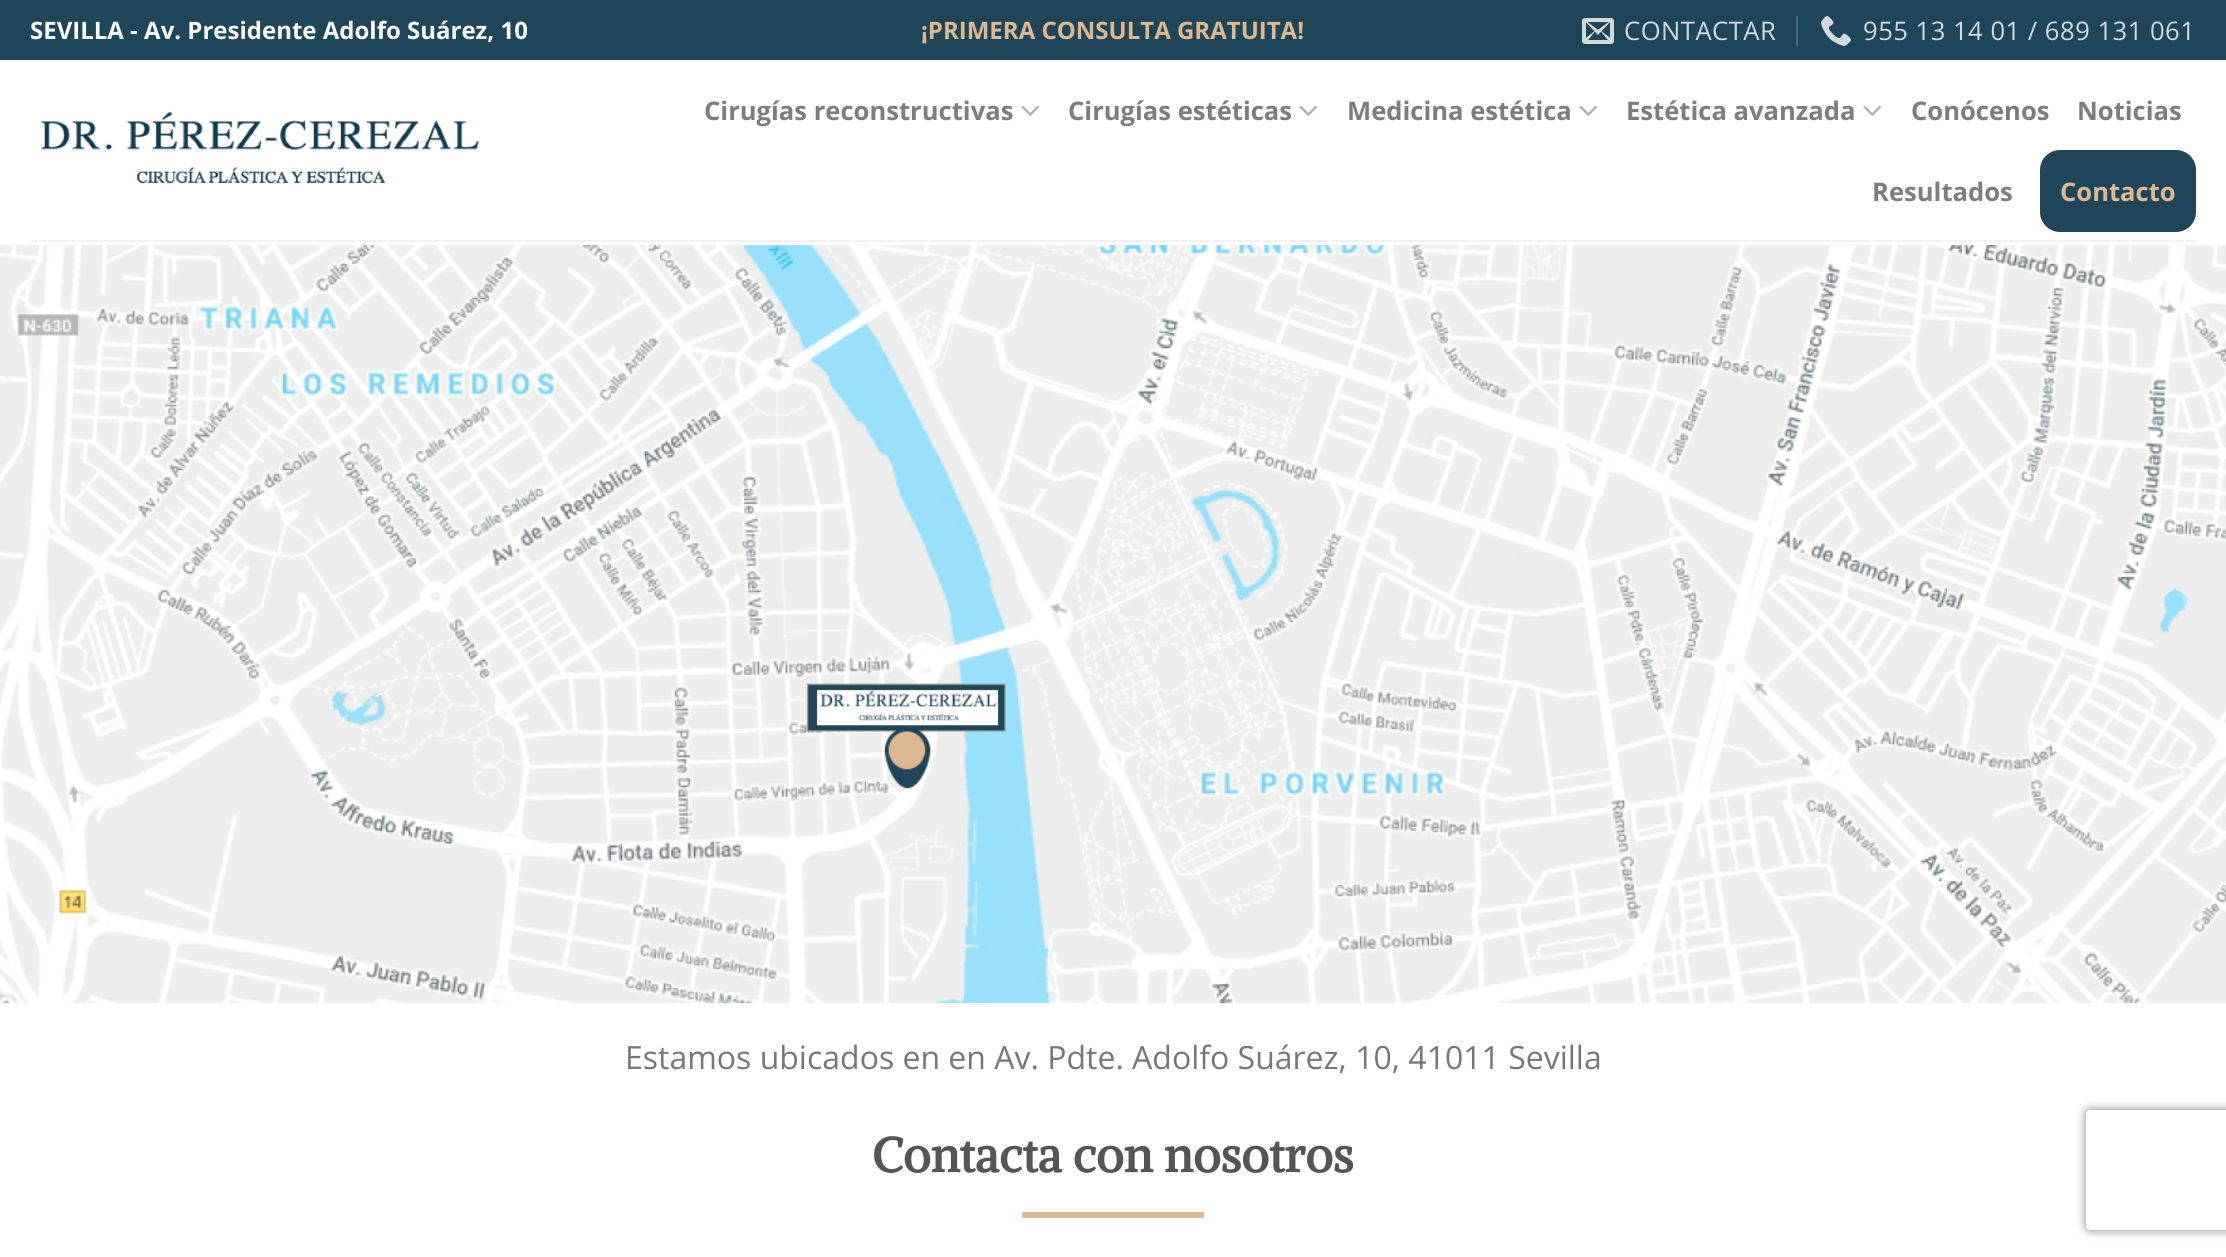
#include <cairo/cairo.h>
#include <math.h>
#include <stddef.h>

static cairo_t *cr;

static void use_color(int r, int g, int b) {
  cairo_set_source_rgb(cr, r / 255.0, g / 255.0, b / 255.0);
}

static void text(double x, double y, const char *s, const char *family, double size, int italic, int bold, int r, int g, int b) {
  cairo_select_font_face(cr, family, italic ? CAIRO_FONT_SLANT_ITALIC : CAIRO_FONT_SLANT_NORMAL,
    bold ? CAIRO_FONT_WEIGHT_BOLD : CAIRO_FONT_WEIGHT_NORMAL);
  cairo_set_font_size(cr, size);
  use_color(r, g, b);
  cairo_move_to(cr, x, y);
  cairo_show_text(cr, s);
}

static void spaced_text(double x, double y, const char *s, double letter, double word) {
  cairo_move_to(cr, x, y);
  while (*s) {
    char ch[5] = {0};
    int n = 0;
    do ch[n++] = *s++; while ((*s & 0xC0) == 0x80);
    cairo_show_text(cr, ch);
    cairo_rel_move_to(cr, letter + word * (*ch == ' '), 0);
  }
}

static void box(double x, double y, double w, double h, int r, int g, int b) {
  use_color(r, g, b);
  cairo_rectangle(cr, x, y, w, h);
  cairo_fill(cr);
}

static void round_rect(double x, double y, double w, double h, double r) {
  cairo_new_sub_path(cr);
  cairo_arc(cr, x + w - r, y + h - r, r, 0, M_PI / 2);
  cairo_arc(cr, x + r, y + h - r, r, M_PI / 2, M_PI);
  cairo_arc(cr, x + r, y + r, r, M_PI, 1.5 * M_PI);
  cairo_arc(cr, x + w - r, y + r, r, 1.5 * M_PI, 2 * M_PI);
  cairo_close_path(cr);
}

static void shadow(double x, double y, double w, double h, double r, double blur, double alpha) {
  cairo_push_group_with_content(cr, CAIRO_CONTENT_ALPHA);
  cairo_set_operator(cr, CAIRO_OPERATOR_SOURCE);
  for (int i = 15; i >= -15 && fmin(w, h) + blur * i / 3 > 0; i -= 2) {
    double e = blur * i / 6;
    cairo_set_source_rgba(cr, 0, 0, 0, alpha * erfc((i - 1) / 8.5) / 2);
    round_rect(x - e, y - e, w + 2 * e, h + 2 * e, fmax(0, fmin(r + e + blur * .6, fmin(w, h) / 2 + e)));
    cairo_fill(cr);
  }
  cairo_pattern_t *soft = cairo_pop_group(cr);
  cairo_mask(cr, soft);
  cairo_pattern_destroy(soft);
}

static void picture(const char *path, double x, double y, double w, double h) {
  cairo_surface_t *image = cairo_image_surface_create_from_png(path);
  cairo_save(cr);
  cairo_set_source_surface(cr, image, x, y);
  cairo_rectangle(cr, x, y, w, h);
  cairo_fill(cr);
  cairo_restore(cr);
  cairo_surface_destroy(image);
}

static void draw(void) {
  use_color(255, 255, 255);
  cairo_paint(cr);
  box(0, 0, 2226, 60, 31, 69, 88);
  picture("img_01.png", 1582, 18, 32, 26);
  box(1796, 16, 2, 30, 76, 106, 121);
  picture("img_02.png", 1821, 16, 30, 30);
  picture("img_03.png", 40, 111, 440, 73);
  picture("img_04.png", 1021, 105, 19, 11);
  picture("img_04.png", 1299, 105, 19, 11);
  picture("img_04.png", 1579, 105, 19, 11);
  picture("img_04.png", 1863, 105, 19, 11);
  use_color(31, 69, 88);
  round_rect(2040, 150, 156, 82, 20);
  cairo_fill(cr);
  box(30, 240, 2166, 2, 241, 241, 241);
  picture("img_05.png", 0, 244, 2226, 760);
  box(1022, 1212, 182, 6, 220, 185, 147);
  cairo_save(cr);
  cairo_set_fill_rule(cr, CAIRO_FILL_RULE_EVEN_ODD);
  cairo_new_path(cr);
  cairo_move_to(cr, 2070, 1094);
  cairo_line_to(cr, 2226, 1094);
  cairo_line_to(cr, 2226, 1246);
  cairo_line_to(cr, 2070, 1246);
  cairo_close_path(cr);
  cairo_move_to(cr, 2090, 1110);
  cairo_line_to(cr, 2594, 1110);
  cairo_curve_to(cr, 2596, 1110, 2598, 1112, 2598, 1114);
  cairo_line_to(cr, 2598, 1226);
  cairo_curve_to(cr, 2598, 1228, 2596, 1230, 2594, 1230);
  cairo_line_to(cr, 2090, 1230);
  cairo_curve_to(cr, 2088, 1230, 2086, 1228, 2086, 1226);
  cairo_line_to(cr, 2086, 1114);
  cairo_curve_to(cr, 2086, 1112, 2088, 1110, 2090, 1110);
  cairo_close_path(cr);
  cairo_clip(cr);
  use_color(128, 128, 128);
  shadow(2086, 1110, 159, 120, 4, 5, 1);
  cairo_restore(cr);
  text(30, 39, "SEVILLA - Av. Presidente Adolfo Suárez, 10", "Open Sans", 24, 0, 1, 255, 255, 255);
  text(921, 39, "¡PRIMERA CONSULTA GRATUITA!", "Open Sans", 24, 0, 1, 220, 185, 147);
  cairo_select_font_face(cr, "Open Sans", CAIRO_FONT_SLANT_NORMAL, CAIRO_FONT_WEIGHT_NORMAL);
  cairo_set_font_size(cr, 25.6);
  use_color(210, 218, 222);
  spaced_text(1624, 40, "CONTACTAR", 0.5, 0);
  spaced_text(1863, 40, "955 13 14 01 / 689 131 061", 0.5, 0);
  text(704, 120, "Cirugías reconstructivas", "Open Sans", 25.6, 0, 1, 125, 125, 125);
  text(1068, 120, "Cirugías estéticas", "Open Sans", 25.6, 0, 1, 125, 125, 125);
  text(1347, 120, "Medicina estética", "Open Sans", 25.6, 0, 1, 125, 125, 125);
  text(1626, 120, "Estética avanzada", "Open Sans", 25.6, 0, 1, 125, 125, 125);
  text(1911, 120, "Conócenos", "Open Sans", 25.6, 0, 1, 125, 125, 125);
  text(2077, 120, "Noticias", "Open Sans", 25.6, 0, 1, 125, 125, 125);
  text(1872, 201, "Resultados", "Open Sans", 25.6, 0, 1, 125, 125, 125);
  text(2060, 201, "Contacto", "Open Sans", 25.6, 0, 1, 220, 185, 147);
  text(625, 1069, "Estamos ubicados en en Av. Pdte. Adolfo Suárez, 10, 41011 Sevilla", "Open Sans", 32, 0, 0, 119, 119, 119);
  text(872, 1172, "Contacta con nosotros", "Alike", 48, 0, 1, 85, 85, 85);
}

int main(void) {
  cairo_surface_t *surface = cairo_image_surface_create(CAIRO_FORMAT_RGB24, 2226, 1257);
  cr = cairo_create(surface);
  cairo_font_options_t *options = cairo_font_options_create();
  cairo_font_options_set_hint_metrics(options, CAIRO_HINT_METRICS_OFF);
  cairo_font_options_set_hint_style(options, CAIRO_HINT_STYLE_NONE);
  cairo_set_font_options(cr, options);
  cairo_set_miter_limit(cr, 4);
  draw();
  cairo_surface_write_to_png(surface, "out.png");
  cairo_font_options_destroy(options);
  cairo_destroy(cr);
  cairo_surface_destroy(surface);
  return 0;
}
